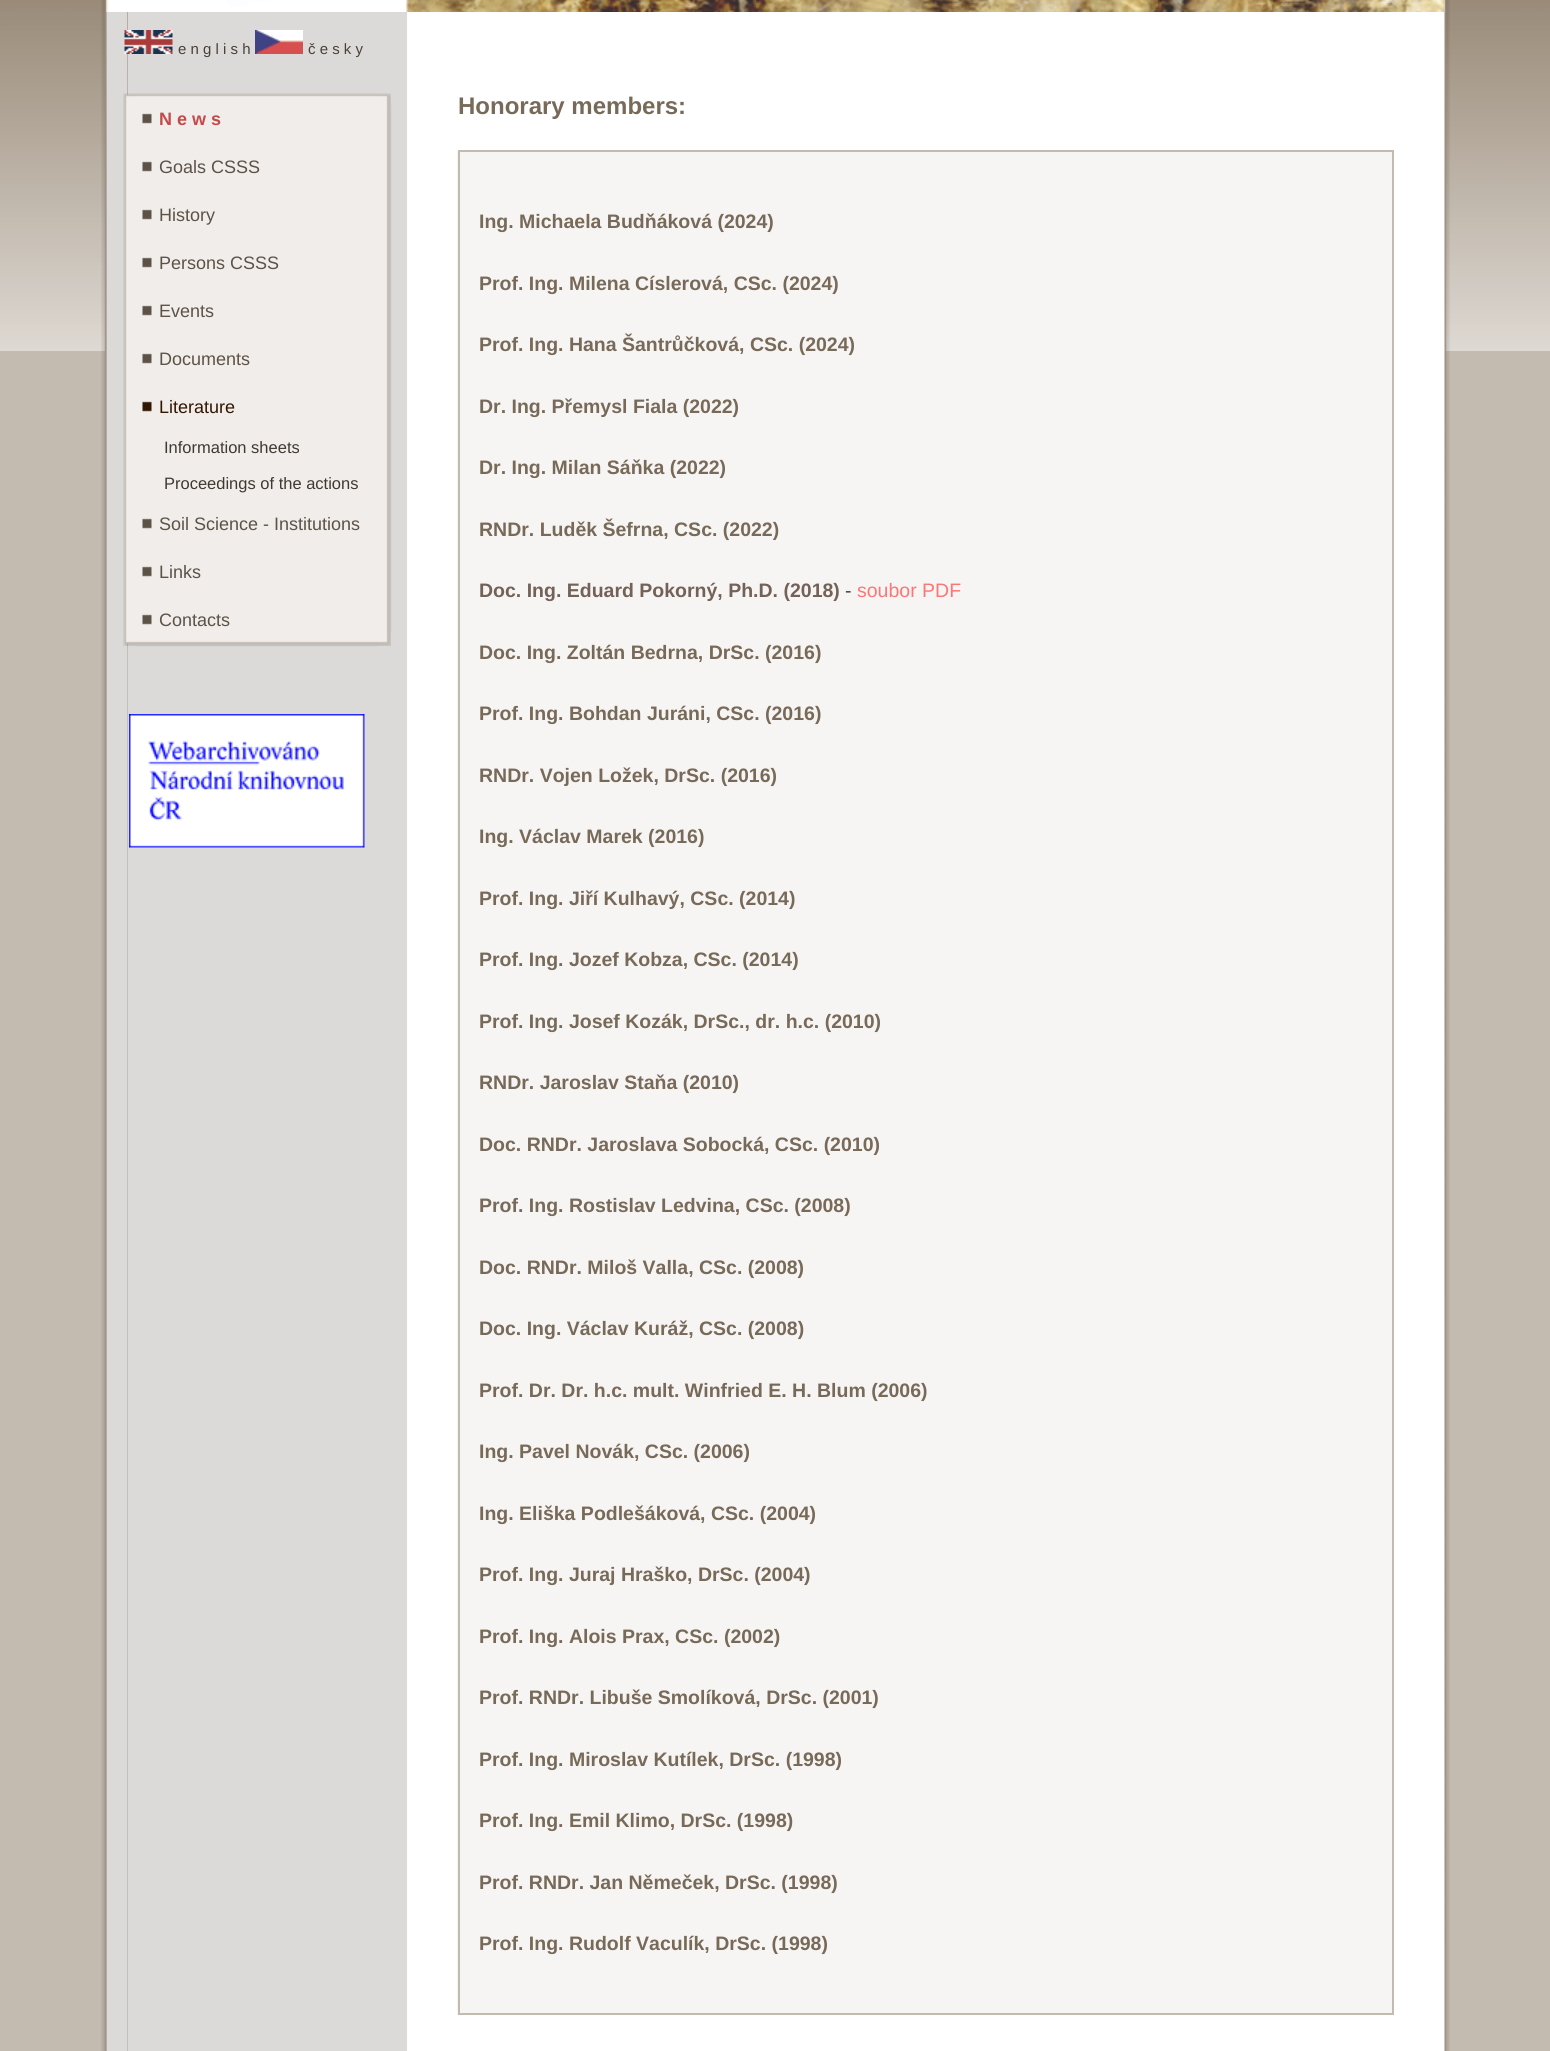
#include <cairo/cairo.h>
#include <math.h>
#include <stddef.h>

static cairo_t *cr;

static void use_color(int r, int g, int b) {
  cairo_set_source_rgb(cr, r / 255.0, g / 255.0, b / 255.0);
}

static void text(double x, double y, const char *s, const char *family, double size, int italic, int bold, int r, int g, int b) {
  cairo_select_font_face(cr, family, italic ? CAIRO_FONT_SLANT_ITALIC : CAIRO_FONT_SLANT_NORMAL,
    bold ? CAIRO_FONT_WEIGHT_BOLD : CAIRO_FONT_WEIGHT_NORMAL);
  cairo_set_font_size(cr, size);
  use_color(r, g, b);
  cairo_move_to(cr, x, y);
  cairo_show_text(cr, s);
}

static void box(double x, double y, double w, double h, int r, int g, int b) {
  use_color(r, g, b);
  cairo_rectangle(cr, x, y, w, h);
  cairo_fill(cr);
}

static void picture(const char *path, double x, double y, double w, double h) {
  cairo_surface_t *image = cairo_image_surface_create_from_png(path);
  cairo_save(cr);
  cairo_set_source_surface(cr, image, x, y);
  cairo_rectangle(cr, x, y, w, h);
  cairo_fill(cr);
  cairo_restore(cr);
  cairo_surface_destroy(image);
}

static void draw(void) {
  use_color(196, 187, 176);
  cairo_paint(cr);
  picture("img_01.png", 0, 0, 1550, 351);
  picture("img_02.png", 101, 0, 27, 2051);
  box(128, 12, 1296, 2039, 255, 255, 255);
  picture("img_03.png", 1424, 0, 26, 2051);
  picture("img_04.png", 106, 0, 1339, 12);
  cairo_set_source_rgba(cr, 0.314, 0.275, 0.235, 0.2);
  cairo_rectangle(cr, 106, 12, 301, 2039);
  cairo_fill(cr);
  picture("img_05.png", 124, 30, 49, 24);
  picture("img_06.png", 255, 30, 48, 24);
  picture("img_07.png", 123, 93, 12, 12);
  picture("img_08.png", 135, 93, 243, 12);
  picture("img_09.png", 378, 93, 13, 12);
  picture("img_10.png", 123, 105, 12, 528);
  box(135, 105, 243, 528, 240, 237, 235);
  picture("img_11.png", 378, 105, 14, 528);
  picture("img_12.png", 142, 113, 10, 11);
  picture("img_12.png", 142, 161, 10, 11);
  picture("img_12.png", 142, 209, 10, 11);
  picture("img_12.png", 142, 257, 10, 11);
  picture("img_12.png", 142, 305, 10, 11);
  picture("img_12.png", 142, 353, 10, 11);
  picture("img_13.png", 142, 401, 10, 11);
  picture("img_12.png", 142, 518, 10, 11);
  picture("img_12.png", 142, 566, 10, 11);
  picture("img_12.png", 142, 614, 10, 11);
  picture("img_14.png", 123, 633, 12, 13);
  picture("img_15.png", 135, 633, 243, 14);
  picture("img_16.png", 378, 633, 13, 13);
  picture("img_17.png", 129, 714, 236, 134);
  box(457, 150, 935, 1865, 247, 245, 244);
  cairo_rectangle(cr, 459, 151, 934, 1863);
  use_color(196, 187, 176);
  cairo_stroke(cr);
  text(178, 54, "e n g l i s h", "Liberation Sans", 15, 0, 0, 73, 64, 55);
  text(308, 54, "č e s k y", "Liberation Sans", 15, 0, 0, 73, 64, 55);
  text(159, 125, "N e w s", "Liberation Sans", 18, 0, 1, 196, 73, 73);
  text(159, 173, "Goals CSSS", "Liberation Sans", 18, 0, 0, 93, 82, 70);
  text(159, 221, "History", "Liberation Sans", 18, 0, 0, 93, 82, 70);
  text(159, 269, "Persons CSSS", "Liberation Sans", 18, 0, 0, 93, 82, 70);
  text(159, 317, "Events", "Liberation Sans", 18, 0, 0, 93, 82, 70);
  text(159, 365, "Documents", "Liberation Sans", 18, 0, 0, 93, 82, 70);
  text(159, 413, "Literature", "Liberation Sans", 18, 0, 0, 51, 22, 0);
  text(164, 453, "Information sheets", "Liberation Sans", 16.5, 0, 0, 64, 57, 48);
  text(164, 489, "Proceedings of the actions", "Liberation Sans", 16.5, 0, 0, 64, 57, 48);
  text(159, 530, "Soil Science - Institutions", "Liberation Sans", 18, 0, 0, 93, 82, 70);
  text(159, 578, "Links", "Liberation Sans", 18, 0, 0, 93, 82, 70);
  text(159, 626, "Contacts", "Liberation Sans", 18, 0, 0, 93, 82, 70);
  text(458, 114, "Honorary members:", "Liberation Sans", 24, 0, 1, 120, 106, 89);
  text(479, 228, "Ing. Michaela Budňáková (2024)", "Liberation Sans", 19.5, 0, 1, 120, 106, 89);
  text(479, 290, "Prof. Ing. Milena Císlerová, CSc. (2024)", "Liberation Sans", 19.5, 0, 1, 120, 106, 89);
  text(479, 351, "Prof. Ing. Hana Šantrůčková, CSc. (2024)", "Liberation Sans", 19.5, 0, 1, 120, 106, 89);
  text(479, 413, "Dr. Ing. Přemysl Fiala (2022)", "Liberation Sans", 19.5, 0, 1, 120, 106, 89);
  text(479, 474, "Dr. Ing. Milan Sáňka (2022)", "Liberation Sans", 19.5, 0, 1, 120, 106, 89);
  text(479, 536, "RNDr. Luděk Šefrna, CSc. (2022)", "Liberation Sans", 19.5, 0, 1, 120, 106, 89);
  text(479, 597, "Doc. Ing. Eduard Pokorný, Ph.D. (2018)", "Liberation Sans", 19.5, 0, 1, 116, 98, 88);
  text(845, 597, "-", "Liberation Sans", 19.5, 0, 0, 73, 64, 55);
  text(857, 597, "soubor PDF", "Liberation Sans", 19.5, 0, 0, 252, 118, 118);
  text(479, 659, "Doc. Ing. Zoltán Bedrna, DrSc. (2016)", "Liberation Sans", 19.5, 0, 1, 120, 106, 89);
  text(479, 720, "Prof. Ing. Bohdan Juráni, CSc. (2016)", "Liberation Sans", 19.5, 0, 1, 120, 106, 89);
  text(479, 782, "RNDr. Vojen Ložek, DrSc. (2016)", "Liberation Sans", 19.5, 0, 1, 120, 106, 89);
  text(479, 843, "Ing. Václav Marek (2016)", "Liberation Sans", 19.5, 0, 1, 120, 106, 89);
  text(479, 905, "Prof. Ing. Jiří Kulhavý, CSc. (2014)", "Liberation Sans", 19.5, 0, 1, 120, 106, 89);
  text(479, 966, "Prof. Ing. Jozef Kobza, CSc. (2014)", "Liberation Sans", 19.5, 0, 1, 120, 106, 89);
  text(479, 1028, "Prof. Ing. Josef Kozák, DrSc., dr. h.c. (2010)", "Liberation Sans", 19.5, 0, 1, 120, 106, 89);
  text(479, 1089, "RNDr. Jaroslav Staňa (2010)", "Liberation Sans", 19.5, 0, 1, 120, 106, 89);
  text(479, 1151, "Doc. RNDr. Jaroslava Sobocká, CSc. (2010)", "Liberation Sans", 19.5, 0, 1, 120, 106, 89);
  text(479, 1212, "Prof. Ing. Rostislav Ledvina, CSc. (2008)", "Liberation Sans", 19.5, 0, 1, 120, 106, 89);
  text(479, 1274, "Doc. RNDr. Miloš Valla, CSc. (2008)", "Liberation Sans", 19.5, 0, 1, 120, 106, 89);
  text(479, 1335, "Doc. Ing. Václav Kuráž, CSc. (2008)", "Liberation Sans", 19.5, 0, 1, 120, 106, 89);
  text(479, 1397, "Prof. Dr. Dr. h.c. mult. Winfried E. H. Blum (2006)", "Liberation Sans", 19.5, 0, 1, 120, 106, 89);
  text(479, 1458, "Ing. Pavel Novák, CSc. (2006)", "Liberation Sans", 19.5, 0, 1, 120, 106, 89);
  text(479, 1520, "Ing. Eliška Podlešáková, CSc. (2004)", "Liberation Sans", 19.5, 0, 1, 120, 106, 89);
  text(479, 1581, "Prof. Ing. Juraj Hraško, DrSc. (2004)", "Liberation Sans", 19.5, 0, 1, 120, 106, 89);
  text(479, 1643, "Prof. Ing. Alois Prax, CSc. (2002)", "Liberation Sans", 19.5, 0, 1, 120, 106, 89);
  text(479, 1704, "Prof. RNDr. Libuše Smolíková, DrSc. (2001)", "Liberation Sans", 19.5, 0, 1, 120, 106, 89);
  text(479, 1766, "Prof. Ing. Miroslav Kutílek, DrSc. (1998)", "Liberation Sans", 19.5, 0, 1, 120, 106, 89);
  text(479, 1827, "Prof. Ing. Emil Klimo, DrSc. (1998)", "Liberation Sans", 19.5, 0, 1, 120, 106, 89);
  text(479, 1889, "Prof. RNDr. Jan Němeček, DrSc. (1998)", "Liberation Sans", 19.5, 0, 1, 120, 106, 89);
  text(479, 1950, "Prof. Ing. Rudolf Vaculík, DrSc. (1998)", "Liberation Sans", 19.5, 0, 1, 120, 106, 89);
}

int main(void) {
  cairo_surface_t *surface = cairo_image_surface_create(CAIRO_FORMAT_RGB24, 1550, 2051);
  cr = cairo_create(surface);
  cairo_font_options_t *options = cairo_font_options_create();
  cairo_font_options_set_hint_metrics(options, CAIRO_HINT_METRICS_OFF);
  cairo_font_options_set_hint_style(options, CAIRO_HINT_STYLE_NONE);
  cairo_set_font_options(cr, options);
  cairo_set_miter_limit(cr, 4);
  draw();
  cairo_surface_write_to_png(surface, "out.png");
  cairo_font_options_destroy(options);
  cairo_destroy(cr);
  cairo_surface_destroy(surface);
  return 0;
}
